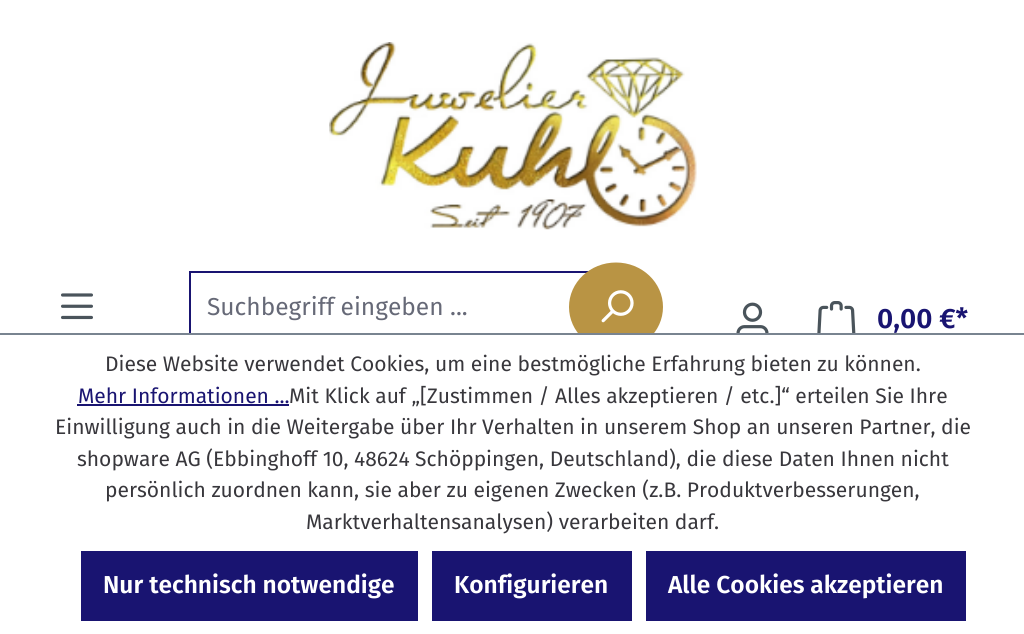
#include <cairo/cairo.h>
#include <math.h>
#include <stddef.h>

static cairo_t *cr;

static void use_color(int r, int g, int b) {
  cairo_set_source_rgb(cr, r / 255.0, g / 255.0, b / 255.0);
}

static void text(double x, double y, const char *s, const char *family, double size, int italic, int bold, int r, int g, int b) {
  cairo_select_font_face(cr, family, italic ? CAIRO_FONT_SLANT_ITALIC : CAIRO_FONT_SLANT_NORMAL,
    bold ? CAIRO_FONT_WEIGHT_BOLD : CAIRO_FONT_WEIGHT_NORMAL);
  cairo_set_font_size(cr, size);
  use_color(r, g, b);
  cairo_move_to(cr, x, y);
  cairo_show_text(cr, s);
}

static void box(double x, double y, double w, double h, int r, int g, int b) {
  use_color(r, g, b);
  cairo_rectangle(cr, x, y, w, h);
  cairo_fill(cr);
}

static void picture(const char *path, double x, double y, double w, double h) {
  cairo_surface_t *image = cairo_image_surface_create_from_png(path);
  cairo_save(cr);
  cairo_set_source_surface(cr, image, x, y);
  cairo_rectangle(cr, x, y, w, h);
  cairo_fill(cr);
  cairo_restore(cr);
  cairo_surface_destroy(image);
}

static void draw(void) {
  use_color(255, 255, 255);
  cairo_paint(cr);
  picture("img_01.png", 329, 42, 368, 188);
  picture("img_02.png", 61, 293, 32, 27);
  cairo_rectangle(cr, 190, 272, 450, 70);
  use_color(25, 20, 113);
  cairo_stroke(cr);
  use_color(185, 148, 68);
  cairo_new_path(cr);
  cairo_move_to(cr, 616, 262.5);
  cairo_curve_to(cr, 642, 262.5, 663, 282.5, 663, 307);
  cairo_curve_to(cr, 663, 331.5, 642, 351.5, 616, 351.5);
  cairo_curve_to(cr, 590, 351.5, 569, 331.5, 569, 307);
  cairo_curve_to(cr, 569, 282.5, 590, 262.5, 616, 262.5);
  cairo_close_path(cr);
  cairo_fill(cr);
  picture("img_03.png", 601, 290, 33, 33);
  picture("img_04.png", 736, 302, 33, 31);
  picture("img_05.png", 817, 301, 39, 32);
  box(189, 335, 464, 17, 255, 255, 255);
  box(0, 333, 1024, 2, 121, 132, 144);
  box(77, 404, 212, 2, 25, 20, 113);
  box(81, 551, 337, 70, 25, 20, 113);
  box(432, 551, 200, 70, 25, 20, 113);
  box(646, 551, 320, 70, 25, 20, 113);
  text(207, 315, "Suchbegriff eingeben ...", "Fira Sans", 24.5, 0, 0, 102, 105, 119);
  text(877, 328, "0,00 €*", "Fira Sans SemiBold", 28, 0, 0, 25, 20, 113);
  text(105, 371, "Diese Website verwendet Cookies, um eine bestmögliche Erfahrung bieten zu können.", "Fira Sans", 21, 0, 0, 56, 55, 60);
  text(78, 403, "Mehr Informationen ...", "Fira Sans", 21, 0, 0, 25, 20, 113);
  text(289, 403, "Mit Klick auf „[Zustimmen / Alles akzeptieren / etc.]“ erteilen Sie Ihre", "Fira Sans", 21, 0, 0, 56, 55, 60);
  text(55, 434, "Einwilligung auch in die Weitergabe über Ihr Verhalten in unserem Shop an unseren Partner, die", "Fira Sans", 21, 0, 0, 56, 55, 60);
  text(77, 466, "shopware AG (Ebbinghoff 10, 48624 Schöppingen, Deutschland), die diese Daten Ihnen nicht", "Fira Sans", 21, 0, 0, 56, 55, 60);
  text(105, 497, "persönlich zuordnen kann, sie aber zu eigenen Zwecken (z.B. Produktverbesserungen,", "Fira Sans", 21, 0, 0, 56, 55, 60);
  text(306, 529, "Marktverhaltensanalysen) verarbeiten darf.", "Fira Sans", 21, 0, 0, 56, 55, 60);
  text(103, 593, "Nur technisch notwendige", "Fira Sans SemiBold", 24.5, 0, 0, 255, 255, 255);
  text(454, 593, "Konfigurieren", "Fira Sans SemiBold", 24.5, 0, 0, 255, 255, 255);
  text(668, 593, "Alle Cookies akzeptieren", "Fira Sans SemiBold", 24.5, 0, 0, 255, 255, 255);
}

int main(void) {
  cairo_surface_t *surface = cairo_image_surface_create(CAIRO_FORMAT_RGB24, 1024, 634);
  cr = cairo_create(surface);
  cairo_font_options_t *options = cairo_font_options_create();
  cairo_font_options_set_hint_metrics(options, CAIRO_HINT_METRICS_OFF);
  cairo_font_options_set_hint_style(options, CAIRO_HINT_STYLE_NONE);
  cairo_set_font_options(cr, options);
  cairo_set_miter_limit(cr, 4);
  draw();
  cairo_surface_write_to_png(surface, "out.png");
  cairo_font_options_destroy(options);
  cairo_destroy(cr);
  cairo_surface_destroy(surface);
  return 0;
}
